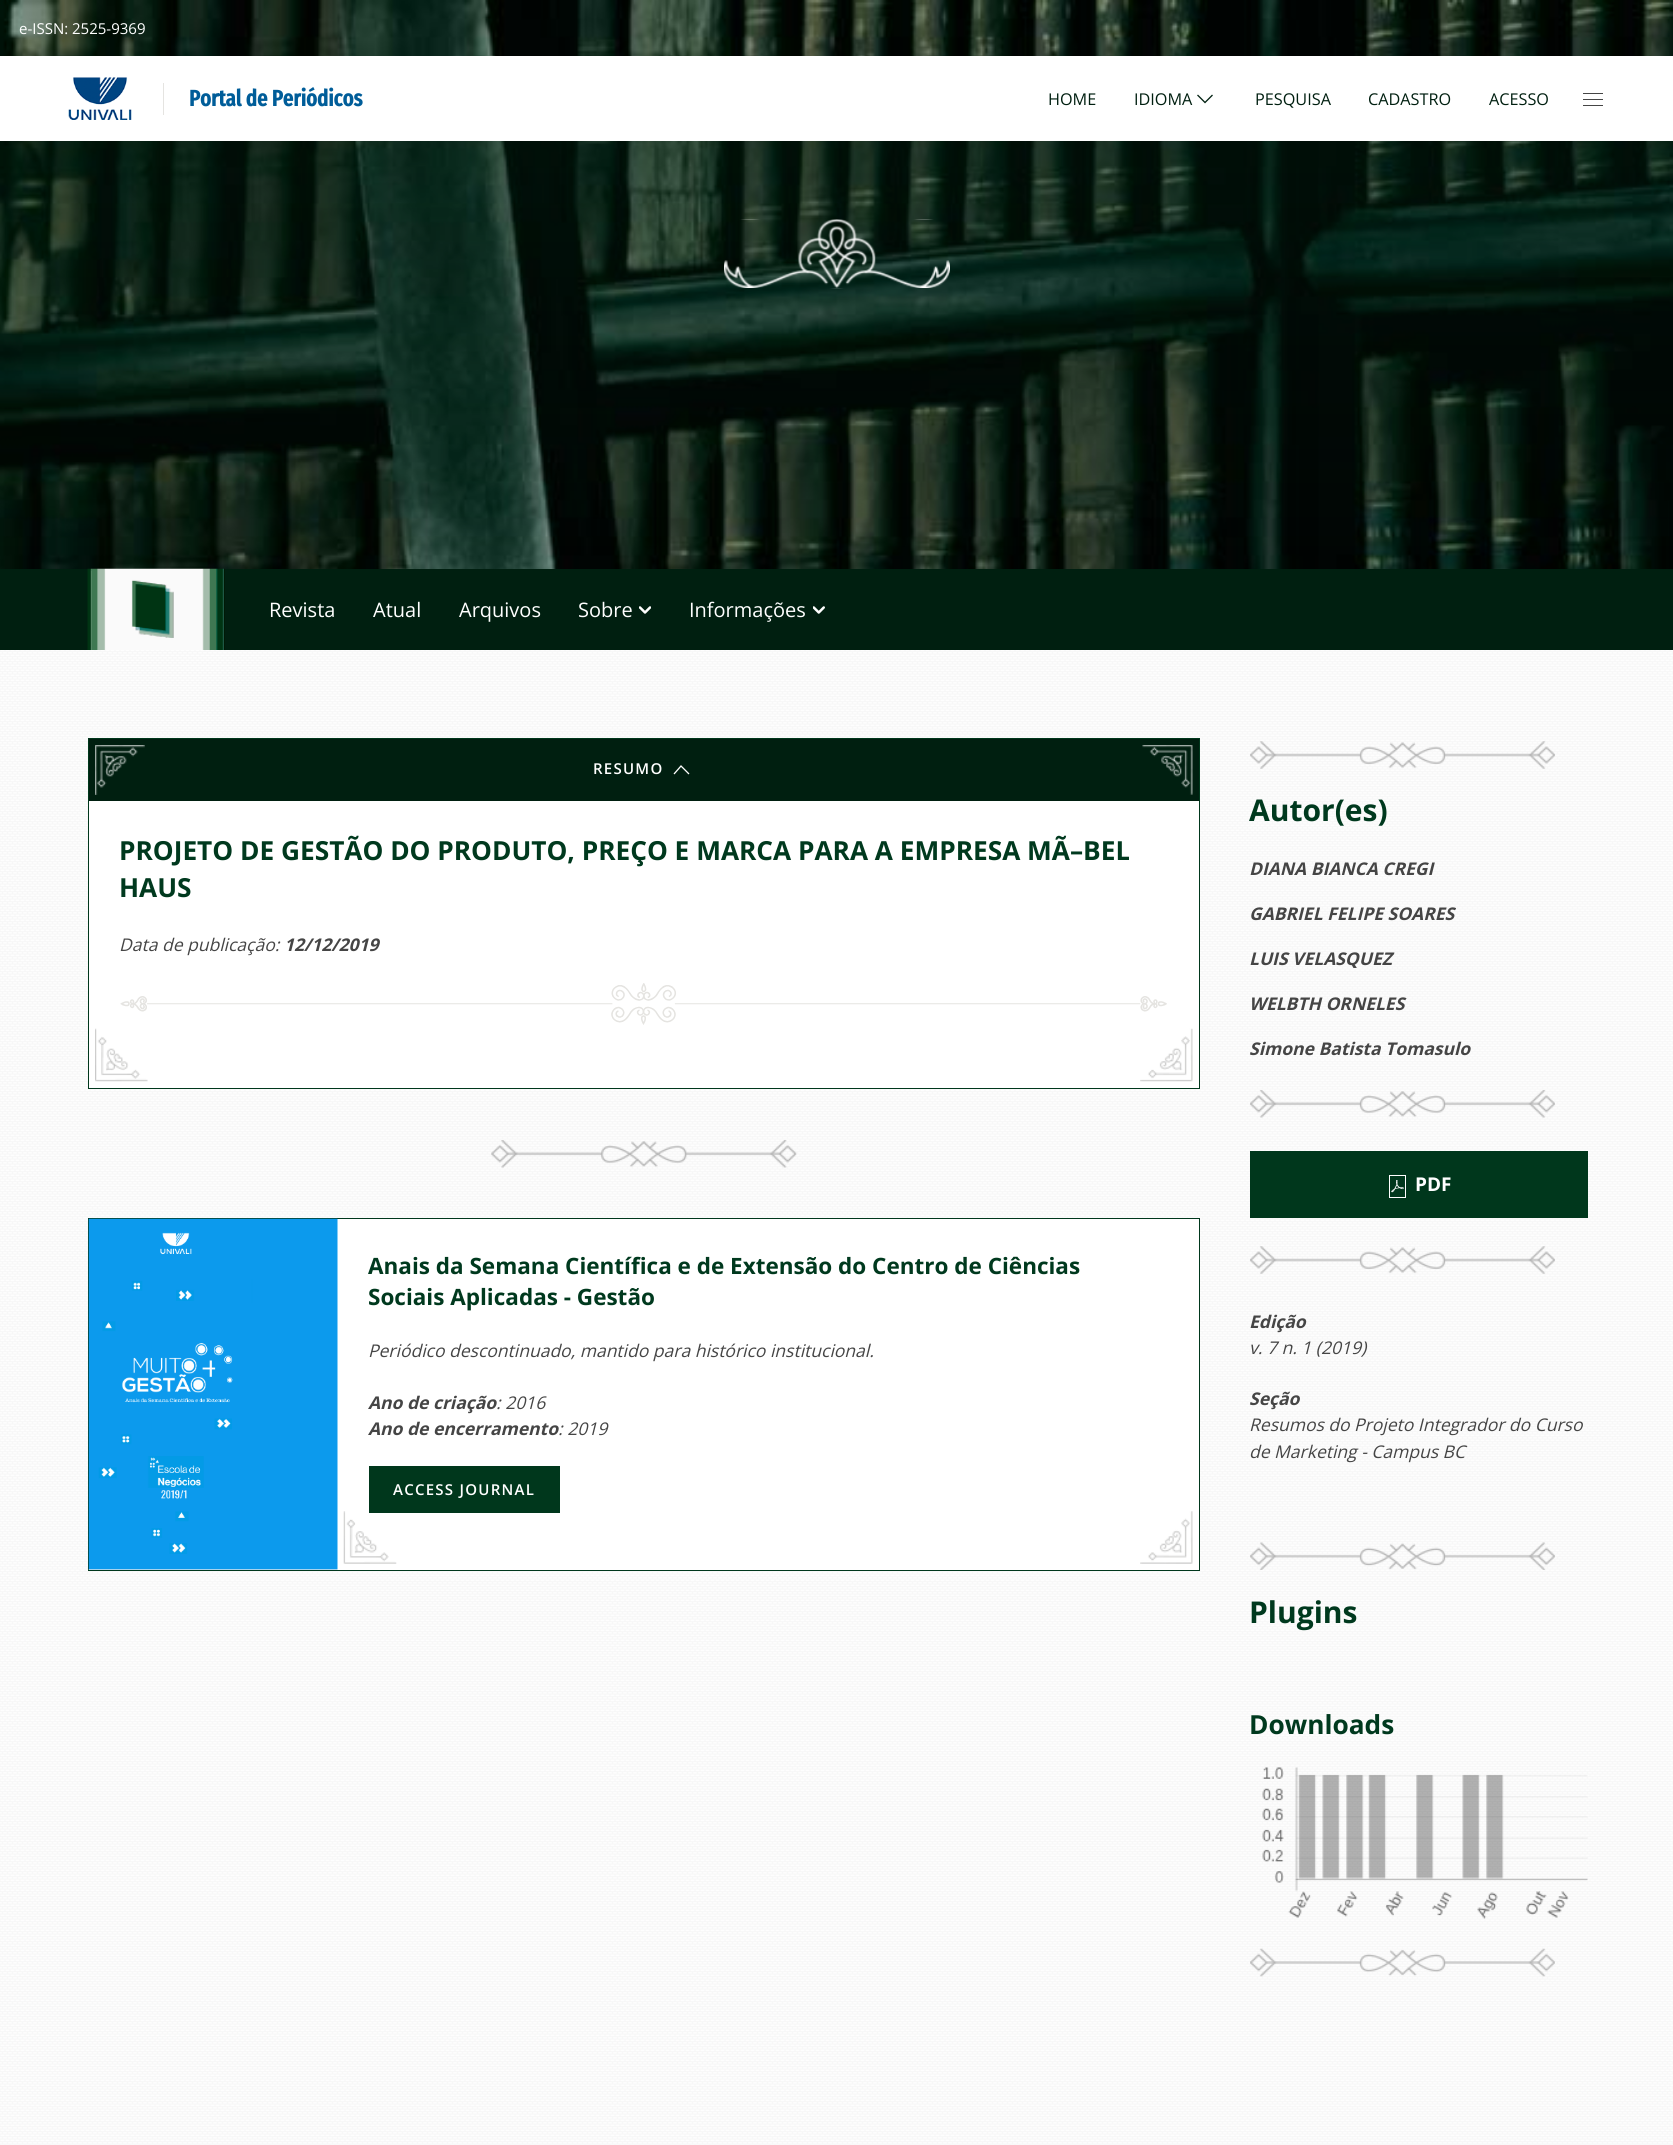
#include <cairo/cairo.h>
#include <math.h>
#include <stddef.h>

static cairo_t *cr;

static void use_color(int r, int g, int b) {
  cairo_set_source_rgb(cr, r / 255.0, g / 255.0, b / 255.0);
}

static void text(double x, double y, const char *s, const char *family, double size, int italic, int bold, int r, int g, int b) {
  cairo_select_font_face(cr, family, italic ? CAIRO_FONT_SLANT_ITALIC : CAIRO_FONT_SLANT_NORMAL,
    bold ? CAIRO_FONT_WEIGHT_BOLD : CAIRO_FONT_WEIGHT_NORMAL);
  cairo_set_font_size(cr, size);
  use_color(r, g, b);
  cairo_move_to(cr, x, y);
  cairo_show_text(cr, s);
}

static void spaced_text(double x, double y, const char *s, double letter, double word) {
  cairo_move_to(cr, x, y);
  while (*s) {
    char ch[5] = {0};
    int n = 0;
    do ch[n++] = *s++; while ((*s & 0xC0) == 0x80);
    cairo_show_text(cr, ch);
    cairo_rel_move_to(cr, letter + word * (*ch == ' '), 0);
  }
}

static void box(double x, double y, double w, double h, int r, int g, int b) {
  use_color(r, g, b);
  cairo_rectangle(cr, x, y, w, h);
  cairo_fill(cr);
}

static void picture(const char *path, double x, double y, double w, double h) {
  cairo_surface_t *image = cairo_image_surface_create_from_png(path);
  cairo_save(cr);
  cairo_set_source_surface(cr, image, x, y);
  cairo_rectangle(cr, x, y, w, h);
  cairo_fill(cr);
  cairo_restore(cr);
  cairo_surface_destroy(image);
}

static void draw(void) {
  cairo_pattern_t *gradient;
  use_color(255, 255, 255);
  cairo_paint(cr);
  picture("img_01.png", 0, 650, 1673, 1495);
  picture("img_02.png", 0, 0, 1673, 569);
  box(0, 56, 1673, 85, 255, 255, 255);
  picture("img_03.png", 68, 77, 64, 43);
  box(163, 83, 1, 32, 229, 228, 225);
  cairo_new_path(cr);
  cairo_move_to(cr, 1212.5, 95);
  cairo_line_to(cr, 1205, 102.5);
  cairo_line_to(cr, 1197.5, 95);
  use_color(0, 31, 16);
  cairo_set_line_width(cr, 1.3);
  cairo_stroke(cr);
  box(1583, 93, 20, 1, 69, 69, 69);
  box(1583, 99, 20, 1, 69, 69, 69);
  box(1583, 105, 20, 1, 69, 69, 69);
  gradient = cairo_pattern_create_linear(837, 141, 837, 569);
  cairo_pattern_add_color_stop_rgba(gradient, 0, 0, 0.122, 0.063, 0.4);
  cairo_pattern_add_color_stop_rgba(gradient, 1, 0, 0.122, 0.063, 0);
  cairo_set_source(cr, gradient);
  cairo_pattern_destroy(gradient);
  cairo_rectangle(cr, 0, 141, 1673, 405);
  cairo_fill(cr);
  picture("img_04.png", 724, 219, 226, 70);
  box(0, 569, 1673, 81, 0, 31, 16);
  picture("img_05.png", 87, 568, 138, 82);
  picture("img_06.png", 639, 606, 12, 8);
  picture("img_07.png", 813, 606, 12, 8);
  box(89, 801, 1110, 287, 255, 255, 255);
  cairo_rectangle(cr, 88.5, 738.5, 1111, 350);
  use_color(0, 55, 28);
  cairo_set_line_width(cr, 1);
  cairo_stroke(cr);
  box(89, 739, 1110, 62, 0, 31, 16);
  picture("img_08.png", 95, 745, 50, 50);
  cairo_new_path(cr);
  cairo_move_to(cr, 674, 774);
  cairo_line_to(cr, 681, 766);
  cairo_line_to(cr, 689, 774);
  use_color(255, 255, 255);
  cairo_set_line_width(cr, 1.3);
  cairo_stroke(cr);
  picture("img_09.png", 1142, 745, 51, 50);
  picture("img_10.png", 120, 983, 1047, 42);
  picture("img_11.png", 95, 1028, 53, 54);
  picture("img_12.png", 1140, 1028, 53, 54);
  picture("img_13.png", 491, 1140, 306, 28);
  box(337, 1219, 862, 351, 255, 255, 255);
  cairo_rectangle(cr, 88.5, 1218.5, 1111, 352);
  use_color(0, 55, 28);
  cairo_set_line_width(cr, 1);
  cairo_stroke(cr);
  picture("img_14.png", 88, 1218, 250, 352);
  box(369, 1466, 191, 47, 0, 55, 28);
  picture("img_15.png", 343, 1511, 54, 53);
  picture("img_16.png", 1140, 1511, 53, 53);
  picture("img_17.png", 1250, 741, 305, 28);
  picture("img_18.png", 1250, 1090, 305, 28);
  box(1250, 1151, 338, 67, 0, 55, 28);
  picture("img_19.png", 1389, 1175, 17, 23);
  picture("img_17.png", 1250, 1246, 305, 28);
  picture("img_20.png", 1250, 1542, 305, 28);
  picture("img_21.png", 1262, 1767, 326, 152);
  picture("img_22.png", 1250, 1948, 305, 29);
  text(19, 34, "e-ISSN: 2525-9369", "Open Sans", 15, 0, 0, 255, 255, 255);
  text(189, 106, "Portal de Periódicos", "Fira Sans Extra Condensed", 22.5, 0, 1, 0, 93, 153);
  text(1048, 105, "HOME", "Open Sans", 16.25, 0, 0, 0, 31, 16);
  text(1134, 105, "IDIOMA", "Open Sans", 16.25, 0, 0, 0, 31, 16);
  text(1255, 105, "PESQUISA", "Open Sans", 16.25, 0, 0, 0, 31, 16);
  text(1368, 105, "CADASTRO", "Open Sans", 16.25, 0, 0, 0, 31, 16);
  text(1489, 105, "ACESSO", "Open Sans", 16.25, 0, 0, 0, 31, 16);
  text(269, 617, "Revista", "Open Sans", 20, 0, 0, 255, 255, 255);
  text(373, 617, "Atual", "Open Sans", 20, 0, 0, 255, 255, 255);
  text(459, 617, "Arquivos", "Open Sans", 20, 0, 0, 255, 255, 255);
  text(578, 617, "Sobre", "Open Sans", 20, 0, 0, 255, 255, 255);
  text(689, 617, "Informações", "Open Sans", 20, 0, 0, 255, 255, 255);
  cairo_select_font_face(cr, "Open Sans SemiBold", CAIRO_FONT_SLANT_NORMAL, CAIRO_FONT_WEIGHT_NORMAL);
  cairo_set_font_size(cr, 15);
  spaced_text(593, 774, "RESUMO", 1.25, 0);
  text(119, 860, "PROJETO DE GESTÃO DO PRODUTO, PREÇO E MARCA PARA A EMPRESA MÃ–BEL", "Open Sans", 26.25, 0, 1, 0, 57, 30);
  text(119, 897, "HAUS", "Open Sans", 26.25, 0, 1, 0, 57, 30);
  text(119, 951, "Data de publicação:", "Open Sans", 17.5, 1, 0, 69, 69, 69);
  text(284, 951, "12/12/2019", "Open Sans", 17.5, 1, 1, 69, 69, 69);
  text(368, 1274, "Anais da Semana Científica e de Extensão do Centro de Ciências", "Open Sans", 22.5, 0, 1, 0, 57, 30);
  text(368, 1305, "Sociais Aplicadas - Gestão", "Open Sans", 22.5, 0, 1, 0, 57, 30);
  text(368, 1357, "Periódico descontinuado, mantido para histórico institucional.", "Open Sans", 17.5, 1, 0, 69, 69, 69);
  text(368, 1409, "Ano de criação", "Open Sans", 17.5, 1, 1, 69, 69, 69);
  text(496, 1409, ": 2016", "Open Sans", 17.5, 1, 0, 69, 69, 69);
  text(368, 1435, "Ano de encerramento", "Open Sans", 17.5, 1, 1, 69, 69, 69);
  text(558, 1435, ": 2019", "Open Sans", 17.5, 1, 0, 69, 69, 69);
  cairo_select_font_face(cr, "Open Sans SemiBold", CAIRO_FONT_SLANT_NORMAL, CAIRO_FONT_WEIGHT_NORMAL);
  cairo_set_font_size(cr, 15);
  use_color(255, 255, 255);
  spaced_text(393, 1495, "ACCESS JOURNAL", 1.25, 0);
  text(1249, 821, "Autor(es)", "Open Sans", 30, 0, 1, 0, 57, 30);
  text(1249, 875, "DIANA BIANCA CREGI", "Open Sans", 17.5, 1, 1, 69, 69, 69);
  text(1249, 920, "GABRIEL FELIPE SOARES", "Open Sans", 17.5, 1, 1, 69, 69, 69);
  text(1249, 965, "LUIS VELASQUEZ", "Open Sans", 17.5, 1, 1, 69, 69, 69);
  text(1249, 1010, "WELBTH ORNELES", "Open Sans", 17.5, 1, 1, 69, 69, 69);
  text(1249, 1055, "Simone Batista Tomasulo", "Open Sans", 17.5, 1, 1, 69, 69, 69);
  text(1415, 1191, "PDF", "Open Sans", 19, 0, 1, 255, 255, 255);
  text(1249, 1328, "Edição", "Open Sans", 17.5, 1, 1, 69, 69, 69);
  text(1249, 1354, "v. 7 n. 1 (2019)", "Open Sans", 17.5, 1, 0, 69, 69, 69);
  text(1249, 1405, "Seção", "Open Sans", 17.5, 1, 1, 69, 69, 69);
  text(1249, 1431, "Resumos do Projeto Integrador do Curso", "Open Sans", 17.5, 1, 0, 69, 69, 69);
  text(1249, 1458, "de Marketing - Campus BC", "Open Sans", 17.5, 1, 0, 69, 69, 69);
  text(1249, 1623, "Plugins", "Open Sans", 30, 0, 1, 0, 57, 30);
  text(1249, 1734, "Downloads", "Open Sans", 26.25, 0, 1, 0, 57, 30);
}

int main(void) {
  cairo_surface_t *surface = cairo_image_surface_create(CAIRO_FORMAT_RGB24, 1673, 2145);
  cr = cairo_create(surface);
  cairo_font_options_t *options = cairo_font_options_create();
  cairo_font_options_set_hint_metrics(options, CAIRO_HINT_METRICS_OFF);
  cairo_font_options_set_hint_style(options, CAIRO_HINT_STYLE_NONE);
  cairo_set_font_options(cr, options);
  cairo_set_miter_limit(cr, 4);
  draw();
  cairo_surface_write_to_png(surface, "out.png");
  cairo_font_options_destroy(options);
  cairo_destroy(cr);
  cairo_surface_destroy(surface);
  return 0;
}
